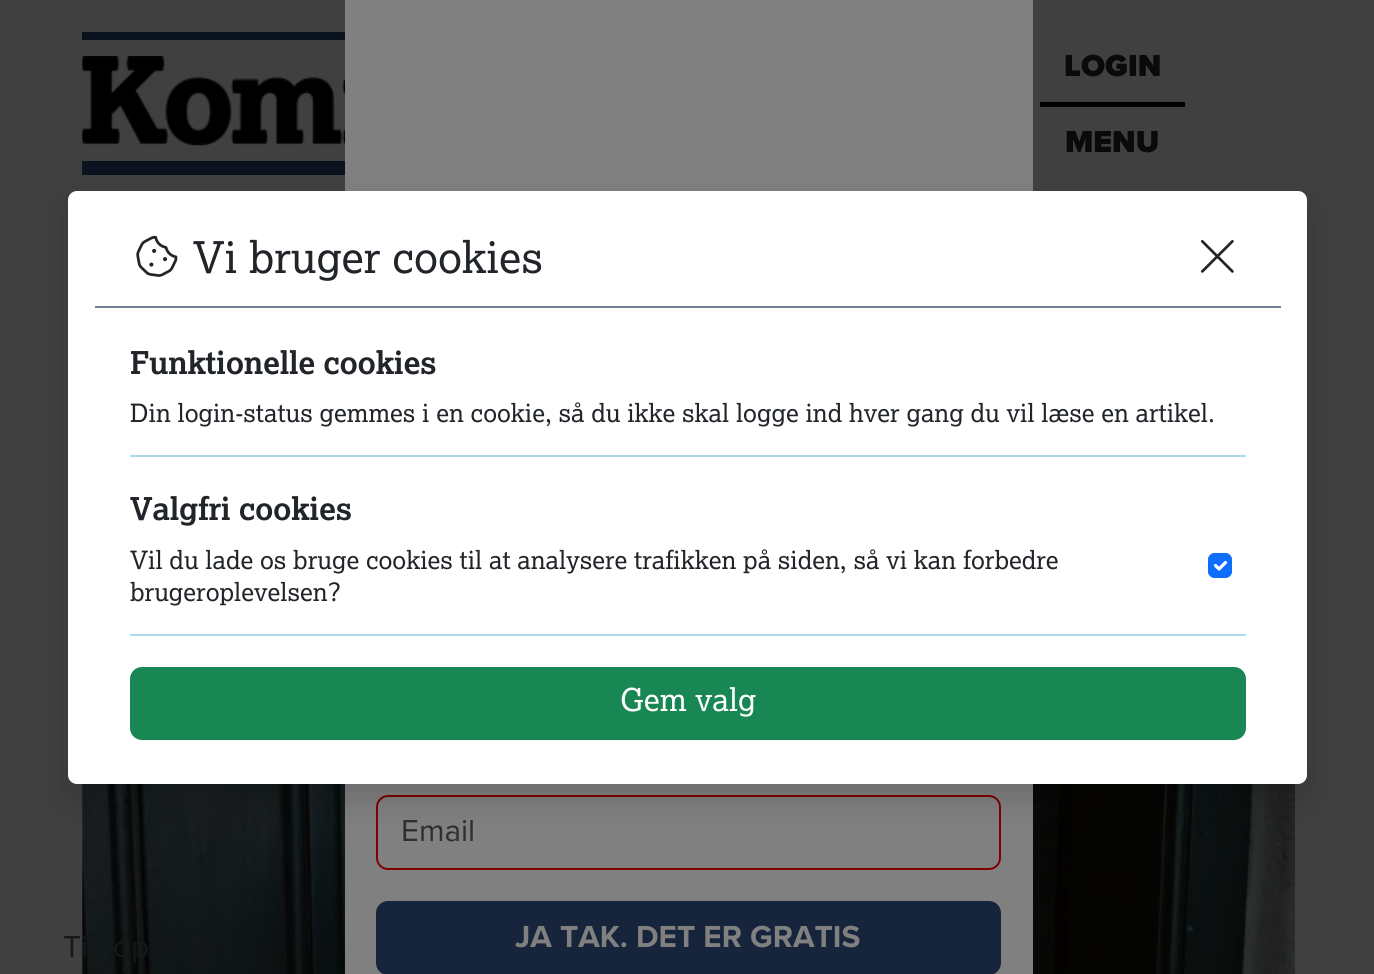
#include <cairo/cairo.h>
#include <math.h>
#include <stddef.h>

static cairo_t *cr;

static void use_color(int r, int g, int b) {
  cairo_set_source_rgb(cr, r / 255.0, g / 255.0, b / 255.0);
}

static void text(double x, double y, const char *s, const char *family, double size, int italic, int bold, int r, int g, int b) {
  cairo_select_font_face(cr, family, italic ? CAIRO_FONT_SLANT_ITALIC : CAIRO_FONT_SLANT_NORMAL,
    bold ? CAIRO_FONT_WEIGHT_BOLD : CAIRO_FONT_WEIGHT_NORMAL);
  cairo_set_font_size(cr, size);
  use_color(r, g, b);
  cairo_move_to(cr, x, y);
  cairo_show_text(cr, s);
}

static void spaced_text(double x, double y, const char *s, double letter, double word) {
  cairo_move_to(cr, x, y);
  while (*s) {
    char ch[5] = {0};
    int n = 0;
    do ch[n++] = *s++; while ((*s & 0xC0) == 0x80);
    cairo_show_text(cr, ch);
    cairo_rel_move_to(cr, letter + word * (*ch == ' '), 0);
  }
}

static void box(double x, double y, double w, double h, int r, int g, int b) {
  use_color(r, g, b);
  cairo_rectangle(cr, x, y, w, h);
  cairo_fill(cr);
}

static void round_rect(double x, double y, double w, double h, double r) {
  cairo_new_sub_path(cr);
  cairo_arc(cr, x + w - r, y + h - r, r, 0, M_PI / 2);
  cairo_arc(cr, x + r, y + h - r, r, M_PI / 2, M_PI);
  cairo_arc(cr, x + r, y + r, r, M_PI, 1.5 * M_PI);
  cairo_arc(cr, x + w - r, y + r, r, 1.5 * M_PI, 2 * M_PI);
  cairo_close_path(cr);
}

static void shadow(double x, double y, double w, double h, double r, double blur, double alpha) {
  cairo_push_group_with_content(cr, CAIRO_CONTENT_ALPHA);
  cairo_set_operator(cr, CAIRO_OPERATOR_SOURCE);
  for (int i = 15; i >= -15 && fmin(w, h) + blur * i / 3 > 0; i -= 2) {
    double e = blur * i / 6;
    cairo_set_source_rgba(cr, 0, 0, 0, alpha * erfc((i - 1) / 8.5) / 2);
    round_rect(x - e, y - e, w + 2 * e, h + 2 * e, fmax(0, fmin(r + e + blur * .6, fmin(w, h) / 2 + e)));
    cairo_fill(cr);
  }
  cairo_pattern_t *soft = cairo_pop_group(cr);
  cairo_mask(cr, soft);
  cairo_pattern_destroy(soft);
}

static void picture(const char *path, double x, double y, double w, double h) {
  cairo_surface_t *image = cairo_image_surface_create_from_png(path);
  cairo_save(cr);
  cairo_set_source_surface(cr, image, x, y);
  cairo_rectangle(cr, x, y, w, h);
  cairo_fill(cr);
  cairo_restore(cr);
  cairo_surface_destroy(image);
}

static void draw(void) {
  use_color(64, 64, 64);
  cairo_paint(cr);
  box(82, 32, 263, 8, 11, 19, 30);
  box(82, 161, 263, 14, 11, 19, 30);
  picture("img_01.png", 82, 56, 263, 90);
  box(1040, 102, 145, 5, 0, 0, 0);
  picture("img_04.png", 82, 784, 1213, 190);
  box(345, 0, 688, 974, 128, 128, 128);
  use_color(255, 255, 255);
  round_rect(68, 191, 1239, 593, 9);
  cairo_fill(cr);
  round_rect(377, 796, 623, 73, 11);
  use_color(128, 0, 0);
  cairo_stroke(cr);
  cairo_save(cr);
  cairo_set_fill_rule(cr, CAIRO_FILL_RULE_EVEN_ODD);
  cairo_new_path(cr);
  cairo_move_to(cr, 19, 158);
  cairo_line_to(cr, 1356, 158);
  cairo_line_to(cr, 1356, 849);
  cairo_line_to(cr, 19, 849);
  cairo_close_path(cr);
  cairo_move_to(cr, 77, 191);
  cairo_line_to(cr, 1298, 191);
  cairo_curve_to(cr, 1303, 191, 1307, 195, 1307, 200);
  cairo_line_to(cr, 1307, 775);
  cairo_curve_to(cr, 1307, 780, 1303, 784, 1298, 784);
  cairo_line_to(cr, 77, 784);
  cairo_curve_to(cr, 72, 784, 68, 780, 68, 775);
  cairo_line_to(cr, 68, 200);
  cairo_curve_to(cr, 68, 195, 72, 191, 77, 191);
  cairo_close_path(cr);
  cairo_clip(cr);
  use_color(0, 0, 0);
  shadow(68, 207, 1239, 593, 9, 16, 0.15);
  cairo_restore(cr);
  box(95, 306, 1186, 2, 112, 128, 144);
  picture("img_02.png", 136, 235, 42, 42);
  picture("img_03.png", 1201, 240, 33, 33);
  box(130, 455, 1116, 2, 173, 216, 230);
  box(130, 634, 1116, 2, 173, 216, 230);
  use_color(13, 110, 253);
  round_rect(1208, 553, 24, 25, 7);
  cairo_fill(cr);
  cairo_new_path(cr);
  cairo_move_to(cr, 1215.5, 565.5);
  cairo_line_to(cr, 1219, 569);
  cairo_line_to(cr, 1225.5, 562.5);
  use_color(255, 255, 255);
  cairo_set_line_width(cr, 3.2);
  cairo_set_line_cap(cr, CAIRO_LINE_CAP_ROUND);
  cairo_set_line_join(cr, CAIRO_LINE_JOIN_ROUND);
  cairo_stroke(cr);
  round_rect(1209, 554, 22, 23, 6);
  use_color(13, 110, 253);
  cairo_set_line_width(cr, 2);
  cairo_set_line_cap(cr, CAIRO_LINE_CAP_BUTT);
  cairo_set_line_join(cr, CAIRO_LINE_JOIN_MITER);
  cairo_stroke(cr);
  use_color(25, 135, 84);
  round_rect(131, 668, 1114, 71, 11);
  cairo_fill_preserve(cr);
  cairo_stroke(cr);
  use_color(22, 37, 59);
  round_rect(376, 901, 625, 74, 12);
  cairo_fill(cr);
  text(1064, 76, "LOGIN", "Proxima Nova Black", 31.5, 0, 0, 9, 10, 11);
  text(1065, 152, "MENU", "Proxima Nova Black", 31.5, 0, 0, 9, 10, 11);
  text(193, 273, "Vi bruger cookies", "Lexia", 43.75, 0, 0, 33, 37, 41);
  cairo_select_font_face(cr, "Lexia", CAIRO_FONT_SLANT_NORMAL, CAIRO_FONT_WEIGHT_BOLD);
  cairo_set_font_size(cr, 31.5);
  spaced_text(130, 374, "Funktionelle cookies", -0.3, 0);
  text(130, 422, "Din login-status gemmes i en cookie, så du ikke skal logge ind hver gang du vil læse en artikel.", "Lexia", 25.2, 0, 0, 33, 37, 41);
  cairo_select_font_face(cr, "Lexia", CAIRO_FONT_SLANT_NORMAL, CAIRO_FONT_WEIGHT_BOLD);
  cairo_set_font_size(cr, 31.5);
  spaced_text(130, 520, "Valgfri cookies", -0.3, 0);
  text(130, 569, "Vil du lade os bruge cookies til at analysere trafikken på siden, så vi kan forbedre", "Lexia", 25.2, 0, 0, 33, 37, 41);
  text(130, 601, "brugeroplevelsen?", "Lexia", 25.2, 0, 0, 33, 37, 41);
  text(620, 711, "Gem valg", "Lexia", 31.5, 0, 0, 255, 255, 255);
  text(63, 957, "Ti", "Proxima Nova", 31.5, 0, 0, 21, 25, 25);
  text(113, 957, "op", "Proxima Nova", 31.5, 0, 0, 21, 25, 25);
  text(401, 841, "Email", "Proxima Nova", 31.5, 0, 0, 45, 46, 48);
  text(515, 947, "JA TAK. DET ER GRATIS", "Proxima Nova", 31.5, 0, 1, 128, 128, 128);
}

int main(void) {
  cairo_surface_t *surface = cairo_image_surface_create(CAIRO_FORMAT_RGB24, 1374, 974);
  cr = cairo_create(surface);
  cairo_font_options_t *options = cairo_font_options_create();
  cairo_font_options_set_hint_metrics(options, CAIRO_HINT_METRICS_OFF);
  cairo_font_options_set_hint_style(options, CAIRO_HINT_STYLE_NONE);
  cairo_set_font_options(cr, options);
  cairo_set_miter_limit(cr, 4);
  draw();
  cairo_surface_write_to_png(surface, "out.png");
  cairo_font_options_destroy(options);
  cairo_destroy(cr);
  cairo_surface_destroy(surface);
  return 0;
}
